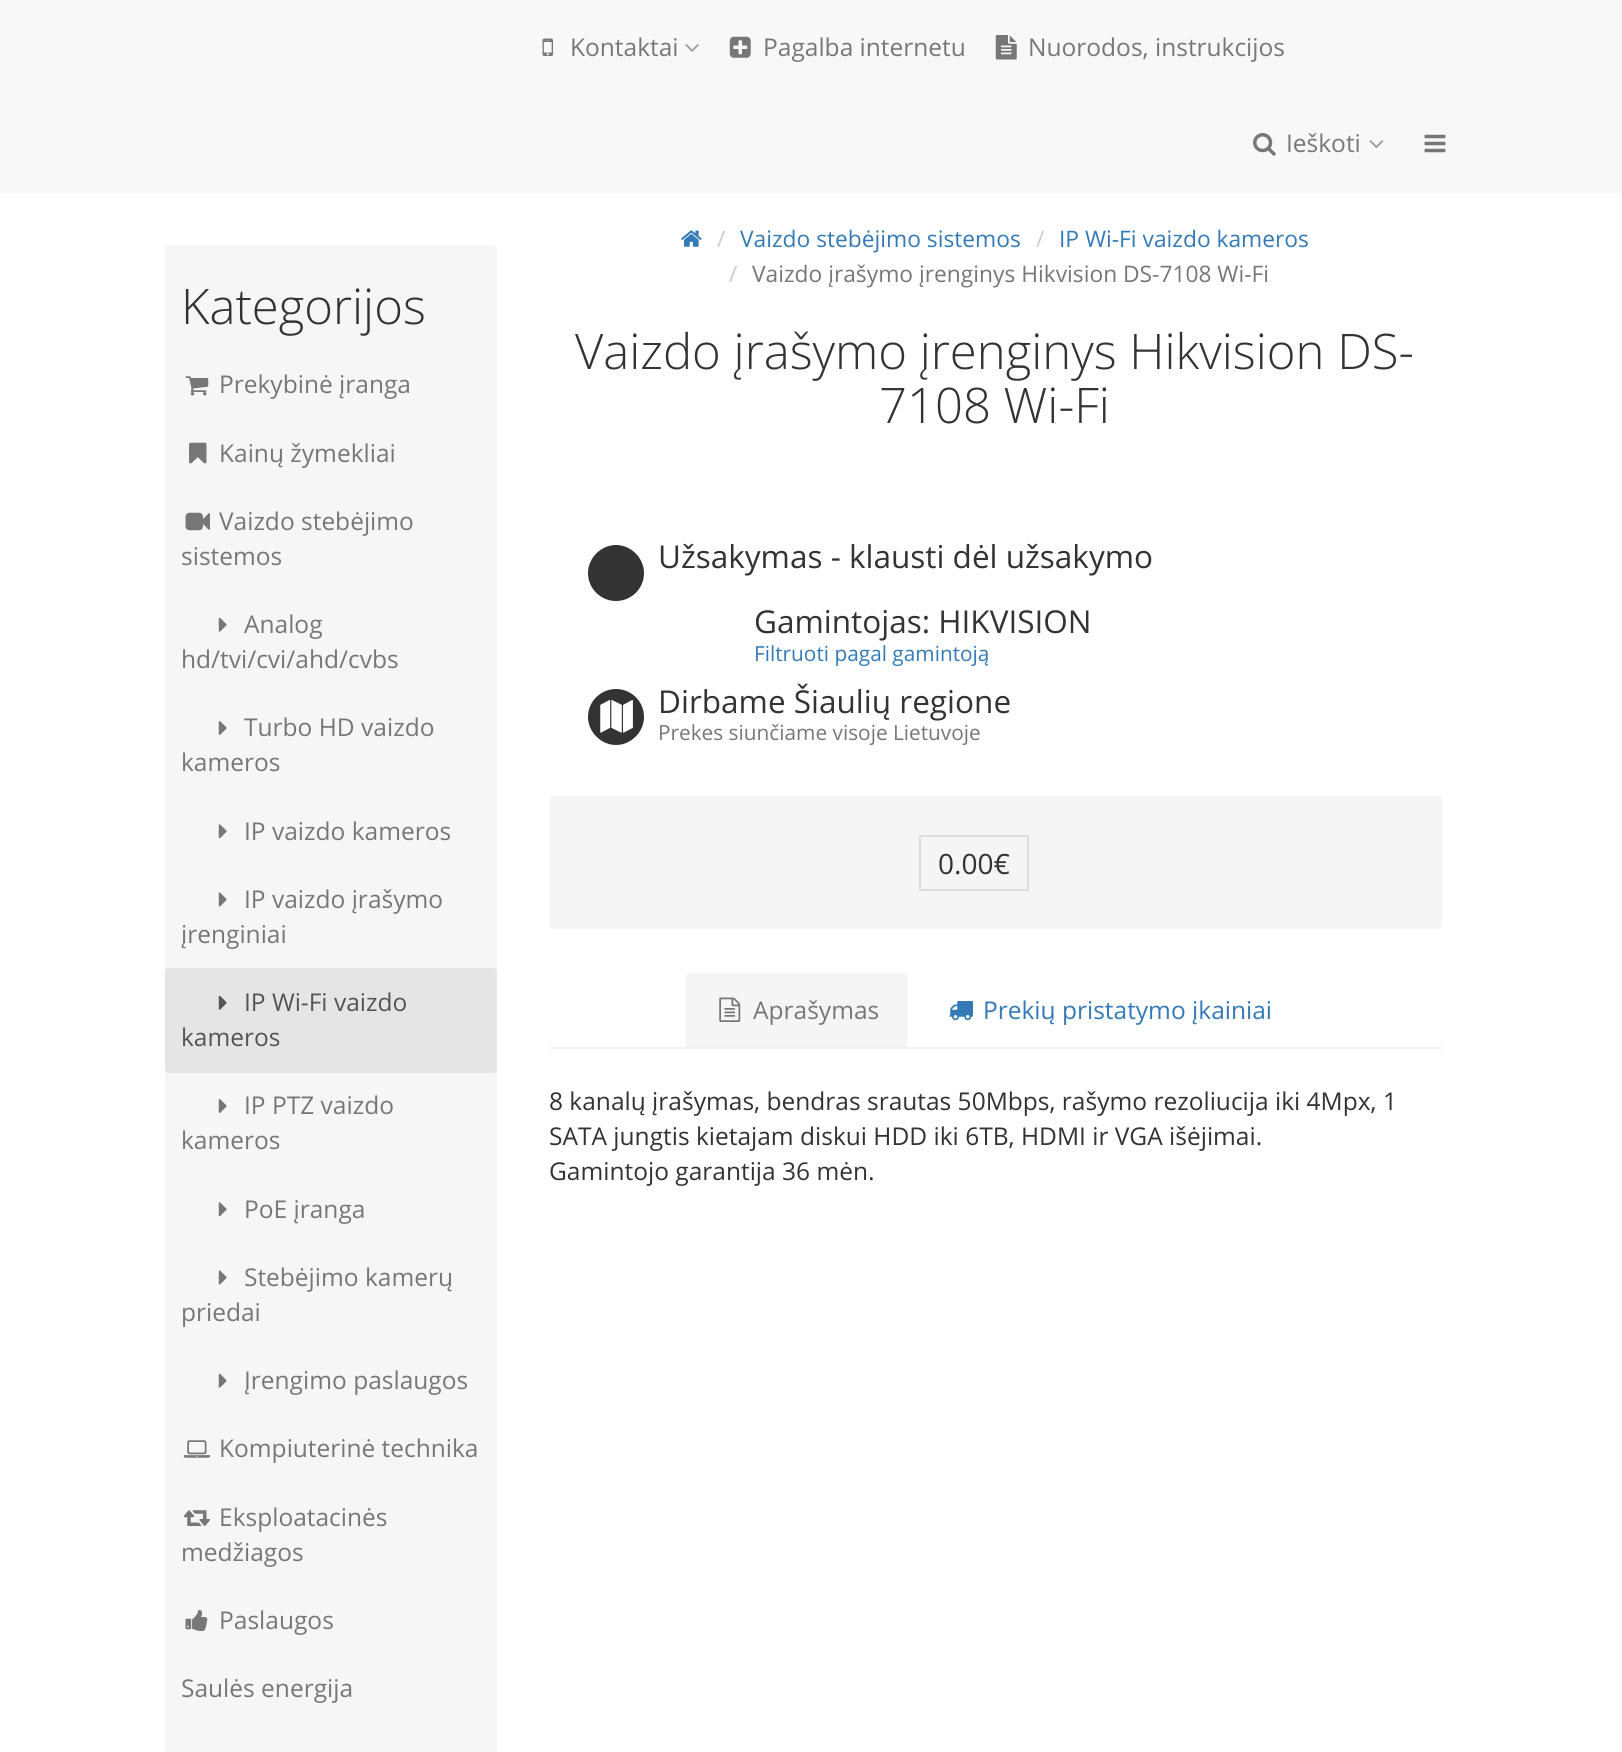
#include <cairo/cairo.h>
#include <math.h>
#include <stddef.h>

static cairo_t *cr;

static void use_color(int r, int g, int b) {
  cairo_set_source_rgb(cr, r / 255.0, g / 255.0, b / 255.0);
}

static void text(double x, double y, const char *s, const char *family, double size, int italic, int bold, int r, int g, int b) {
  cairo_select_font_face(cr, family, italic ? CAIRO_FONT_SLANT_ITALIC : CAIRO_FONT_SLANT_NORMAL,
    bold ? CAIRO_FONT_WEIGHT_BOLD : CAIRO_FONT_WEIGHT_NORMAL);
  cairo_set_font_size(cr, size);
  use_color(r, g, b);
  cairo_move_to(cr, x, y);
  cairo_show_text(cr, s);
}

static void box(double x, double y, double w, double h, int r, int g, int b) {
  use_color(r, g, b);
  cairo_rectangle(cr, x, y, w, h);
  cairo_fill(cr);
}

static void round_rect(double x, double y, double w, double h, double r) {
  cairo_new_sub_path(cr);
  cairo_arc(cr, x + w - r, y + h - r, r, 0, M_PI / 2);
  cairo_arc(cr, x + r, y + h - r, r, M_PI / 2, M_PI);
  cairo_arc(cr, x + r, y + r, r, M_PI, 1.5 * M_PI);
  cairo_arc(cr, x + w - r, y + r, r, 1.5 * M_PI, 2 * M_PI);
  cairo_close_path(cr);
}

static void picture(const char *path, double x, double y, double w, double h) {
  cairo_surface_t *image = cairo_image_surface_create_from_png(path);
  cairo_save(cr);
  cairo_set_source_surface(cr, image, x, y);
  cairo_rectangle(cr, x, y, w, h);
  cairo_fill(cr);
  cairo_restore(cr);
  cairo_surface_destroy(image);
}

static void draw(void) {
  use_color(255, 255, 255);
  cairo_paint(cr);
  box(0, 0, 1622, 193, 248, 248, 248);
  picture("img_01.png", 542, 38, 11, 18);
  picture("img_02.png", 685, 44, 14, 8);
  picture("img_03.png", 729, 36, 22, 22);
  picture("img_04.png", 995, 35, 22, 25);
  picture("img_05.png", 1253, 133, 23, 23);
  picture("img_06.png", 1369, 140, 15, 9);
  picture("img_07.png", 1424, 134, 22, 19);
  use_color(246, 246, 246);
  round_rect(165, 245, 332, 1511, 4);
  cairo_fill(cr);
  picture("img_08.png", 185, 376, 24, 20);
  picture("img_09.png", 189, 442, 18, 22);
  picture("img_10.png", 185, 512, 25, 19);
  picture("img_11.png", 218, 617, 9, 15);
  picture("img_12.png", 218, 721, 9, 14);
  picture("img_13.png", 218, 824, 9, 15);
  picture("img_14.png", 218, 892, 9, 15);
  use_color(229, 229, 229);
  round_rect(165, 968, 332, 105, 4);
  cairo_fill(cr);
  picture("img_15.png", 218, 995, 9, 15);
  picture("img_12.png", 218, 1099, 9, 14);
  picture("img_13.png", 218, 1202, 9, 15);
  picture("img_14.png", 218, 1270, 9, 15);
  picture("img_11.png", 218, 1373, 9, 15);
  picture("img_16.png", 183, 1440, 27, 18);
  picture("img_17.png", 183, 1510, 27, 16);
  picture("img_18.png", 185, 1610, 23, 21);
  picture("img_19.png", 681, 230, 21, 17);
  use_color(51, 51, 51);
  cairo_new_path(cr);
  cairo_move_to(cr, 644, 573);
  cairo_curve_to(cr, 644, 558, 631, 545, 616, 545);
  cairo_curve_to(cr, 601, 545, 588, 558, 588, 573);
  cairo_curve_to(cr, 588, 589, 601, 601, 616, 601);
  cairo_curve_to(cr, 631, 601, 644, 589, 644, 573);
  cairo_close_path(cr);
  cairo_fill(cr);
  cairo_new_path(cr);
  cairo_move_to(cr, 644, 717);
  cairo_curve_to(cr, 644, 701, 631, 689, 616, 689);
  cairo_curve_to(cr, 601, 689, 588, 701, 588, 717);
  cairo_curve_to(cr, 588, 732, 601, 745, 616, 745);
  cairo_curve_to(cr, 631, 745, 644, 732, 644, 717);
  cairo_close_path(cr);
  cairo_fill(cr);
  picture("img_20.png", 600, 700, 33, 33);
  use_color(245, 245, 245);
  round_rect(550, 796, 892, 133, 4);
  cairo_fill(cr);
  cairo_rectangle(cr, 920, 836, 108, 54);
  use_color(221, 221, 221);
  cairo_stroke(cr);
  box(550, 1047, 892, 2, 240, 240, 240);
  use_color(245, 245, 245);
  cairo_new_path(cr);
  cairo_move_to(cr, 690, 973);
  cairo_line_to(cr, 903, 973);
  cairo_curve_to(cr, 905, 973, 907, 975, 907, 977);
  cairo_line_to(cr, 907, 1047);
  cairo_line_to(cr, 686, 1047);
  cairo_line_to(cr, 686, 977);
  cairo_curve_to(cr, 686, 975, 688, 973, 690, 973);
  cairo_close_path(cr);
  cairo_fill(cr);
  picture("img_21.png", 719, 997, 22, 25);
  picture("img_22.png", 949, 1001, 24, 20);
  text(570, 56, "Kontaktai", "Open Sans", 24.5, 0, 0, 119, 119, 119);
  text(763, 56, "Pagalba internetu", "Open Sans", 24.5, 0, 0, 119, 119, 119);
  text(1028, 56, "Nuorodos, instrukcijos", "Open Sans", 24.5, 0, 0, 119, 119, 119);
  text(1286, 152, "Ieškoti", "Open Sans", 24.5, 0, 0, 119, 119, 119);
  text(181, 324, "Kategorijos", "Open Sans Light", 49, 0, 0, 51, 51, 51);
  text(219, 393, "Prekybinė įranga", "Open Sans", 24.5, 0, 0, 119, 119, 119);
  text(219, 462, "Kainų žymekliai", "Open Sans", 24.5, 0, 0, 119, 119, 119);
  text(219, 530, "Vaizdo stebėjimo", "Open Sans", 24.5, 0, 0, 119, 119, 119);
  text(181, 565, "sistemos", "Open Sans", 24.5, 0, 0, 119, 119, 119);
  text(244, 633, "Analog", "Open Sans", 24.5, 0, 0, 119, 119, 119);
  text(181, 668, "hd/tvi/cvi/ahd/cvbs", "Open Sans", 24.5, 0, 0, 119, 119, 119);
  text(244, 736, "Turbo HD vaizdo", "Open Sans", 24.5, 0, 0, 119, 119, 119);
  text(181, 771, "kameros", "Open Sans", 24.5, 0, 0, 119, 119, 119);
  text(244, 840, "IP vaizdo kameros", "Open Sans", 24.5, 0, 0, 119, 119, 119);
  text(244, 908, "IP vaizdo įrašymo", "Open Sans", 24.5, 0, 0, 119, 119, 119);
  text(181, 943, "įrenginiai", "Open Sans", 24.5, 0, 0, 119, 119, 119);
  text(244, 1011, "IP Wi-Fi vaizdo", "Open Sans", 24.5, 0, 0, 85, 85, 85);
  text(181, 1046, "kameros", "Open Sans", 24.5, 0, 0, 85, 85, 85);
  text(244, 1114, "IP PTZ vaizdo", "Open Sans", 24.5, 0, 0, 119, 119, 119);
  text(181, 1149, "kameros", "Open Sans", 24.5, 0, 0, 119, 119, 119);
  text(244, 1218, "PoE įranga", "Open Sans", 24.5, 0, 0, 119, 119, 119);
  text(244, 1286, "Stebėjimo kamerų", "Open Sans", 24.5, 0, 0, 119, 119, 119);
  text(181, 1321, "priedai", "Open Sans", 24.5, 0, 0, 119, 119, 119);
  text(244, 1389, "Įrengimo paslaugos", "Open Sans", 24.5, 0, 0, 119, 119, 119);
  text(219, 1457, "Kompiuterinė technika", "Open Sans", 24.5, 0, 0, 119, 119, 119);
  text(219, 1526, "Eksploatacinės", "Open Sans", 24.5, 0, 0, 119, 119, 119);
  text(181, 1561, "medžiagos", "Open Sans", 24.5, 0, 0, 119, 119, 119);
  text(219, 1629, "Paslaugos", "Open Sans", 24.5, 0, 0, 119, 119, 119);
  text(181, 1697, "Saulės energija", "Open Sans", 24.5, 0, 0, 119, 119, 119);
  text(717, 247, "/", "Open Sans", 22.75, 0, 0, 204, 204, 204);
  text(740, 247, "Vaizdo stebėjimo sistemos", "Open Sans", 22.75, 0, 0, 51, 122, 183);
  text(1036, 247, "/", "Open Sans", 22.75, 0, 0, 204, 204, 204);
  text(1059, 247, "IP Wi-Fi vaizdo kameros", "Open Sans", 22.75, 0, 0, 51, 122, 183);
  text(729, 282, "/", "Open Sans", 22.75, 0, 0, 204, 204, 204);
  text(752, 282, "Vaizdo įrašymo įrenginys Hikvision DS-7108 Wi-Fi", "Open Sans", 22.75, 0, 0, 119, 119, 119);
  text(575, 369, "Vaizdo įrašymo įrenginys Hikvision DS-", "Open Sans Light", 49, 0, 0, 51, 51, 51);
  text(879, 423, "7108 Wi-Fi", "Open Sans Light", 49, 0, 0, 51, 51, 51);
  text(658, 568, "Užsakymas - klausti dėl užsakymo", "Open Sans", 31.5, 0, 0, 51, 51, 51);
  text(754, 633, "Gamintojas: HIKVISION", "Open Sans", 31.5, 0, 0, 51, 51, 51);
  text(754, 661, "Filtruoti pagal gamintoją", "Open Sans", 20.8, 0, 0, 51, 122, 183);
  text(658, 713, "Dirbame Šiaulių regione", "Open Sans", 31.5, 0, 0, 51, 51, 51);
  text(658, 740, "Prekes siunčiame visoje Lietuvoje", "Open Sans", 20.8, 0, 0, 119, 119, 119);
  text(938, 874, "0.00€", "Open Sans", 28, 0, 0, 51, 51, 51);
  text(753, 1019, "Aprašymas", "Open Sans", 24.5, 0, 0, 119, 119, 119);
  text(983, 1019, "Prekių pristatymo įkainiai", "Open Sans", 24.5, 0, 0, 51, 122, 183);
  text(549, 1110, "8 kanalų įrašymas, bendras srautas 50Mbps, rašymo rezoliucija iki 4Mpx, 1", "Open Sans", 24.5, 0, 0, 51, 51, 51);
  text(549, 1145, "SATA jungtis kietajam diskui HDD iki 6TB, HDMI ir VGA išėjimai.", "Open Sans", 24.5, 0, 0, 51, 51, 51);
  text(549, 1180, "Gamintojo garantija 36 mėn.", "Open Sans", 24.5, 0, 0, 51, 51, 51);
}

int main(void) {
  cairo_surface_t *surface = cairo_image_surface_create(CAIRO_FORMAT_RGB24, 1622, 1752);
  cr = cairo_create(surface);
  cairo_font_options_t *options = cairo_font_options_create();
  cairo_font_options_set_hint_metrics(options, CAIRO_HINT_METRICS_OFF);
  cairo_font_options_set_hint_style(options, CAIRO_HINT_STYLE_NONE);
  cairo_set_font_options(cr, options);
  cairo_set_miter_limit(cr, 4);
  draw();
  cairo_surface_write_to_png(surface, "out.png");
  cairo_font_options_destroy(options);
  cairo_destroy(cr);
  cairo_surface_destroy(surface);
  return 0;
}
